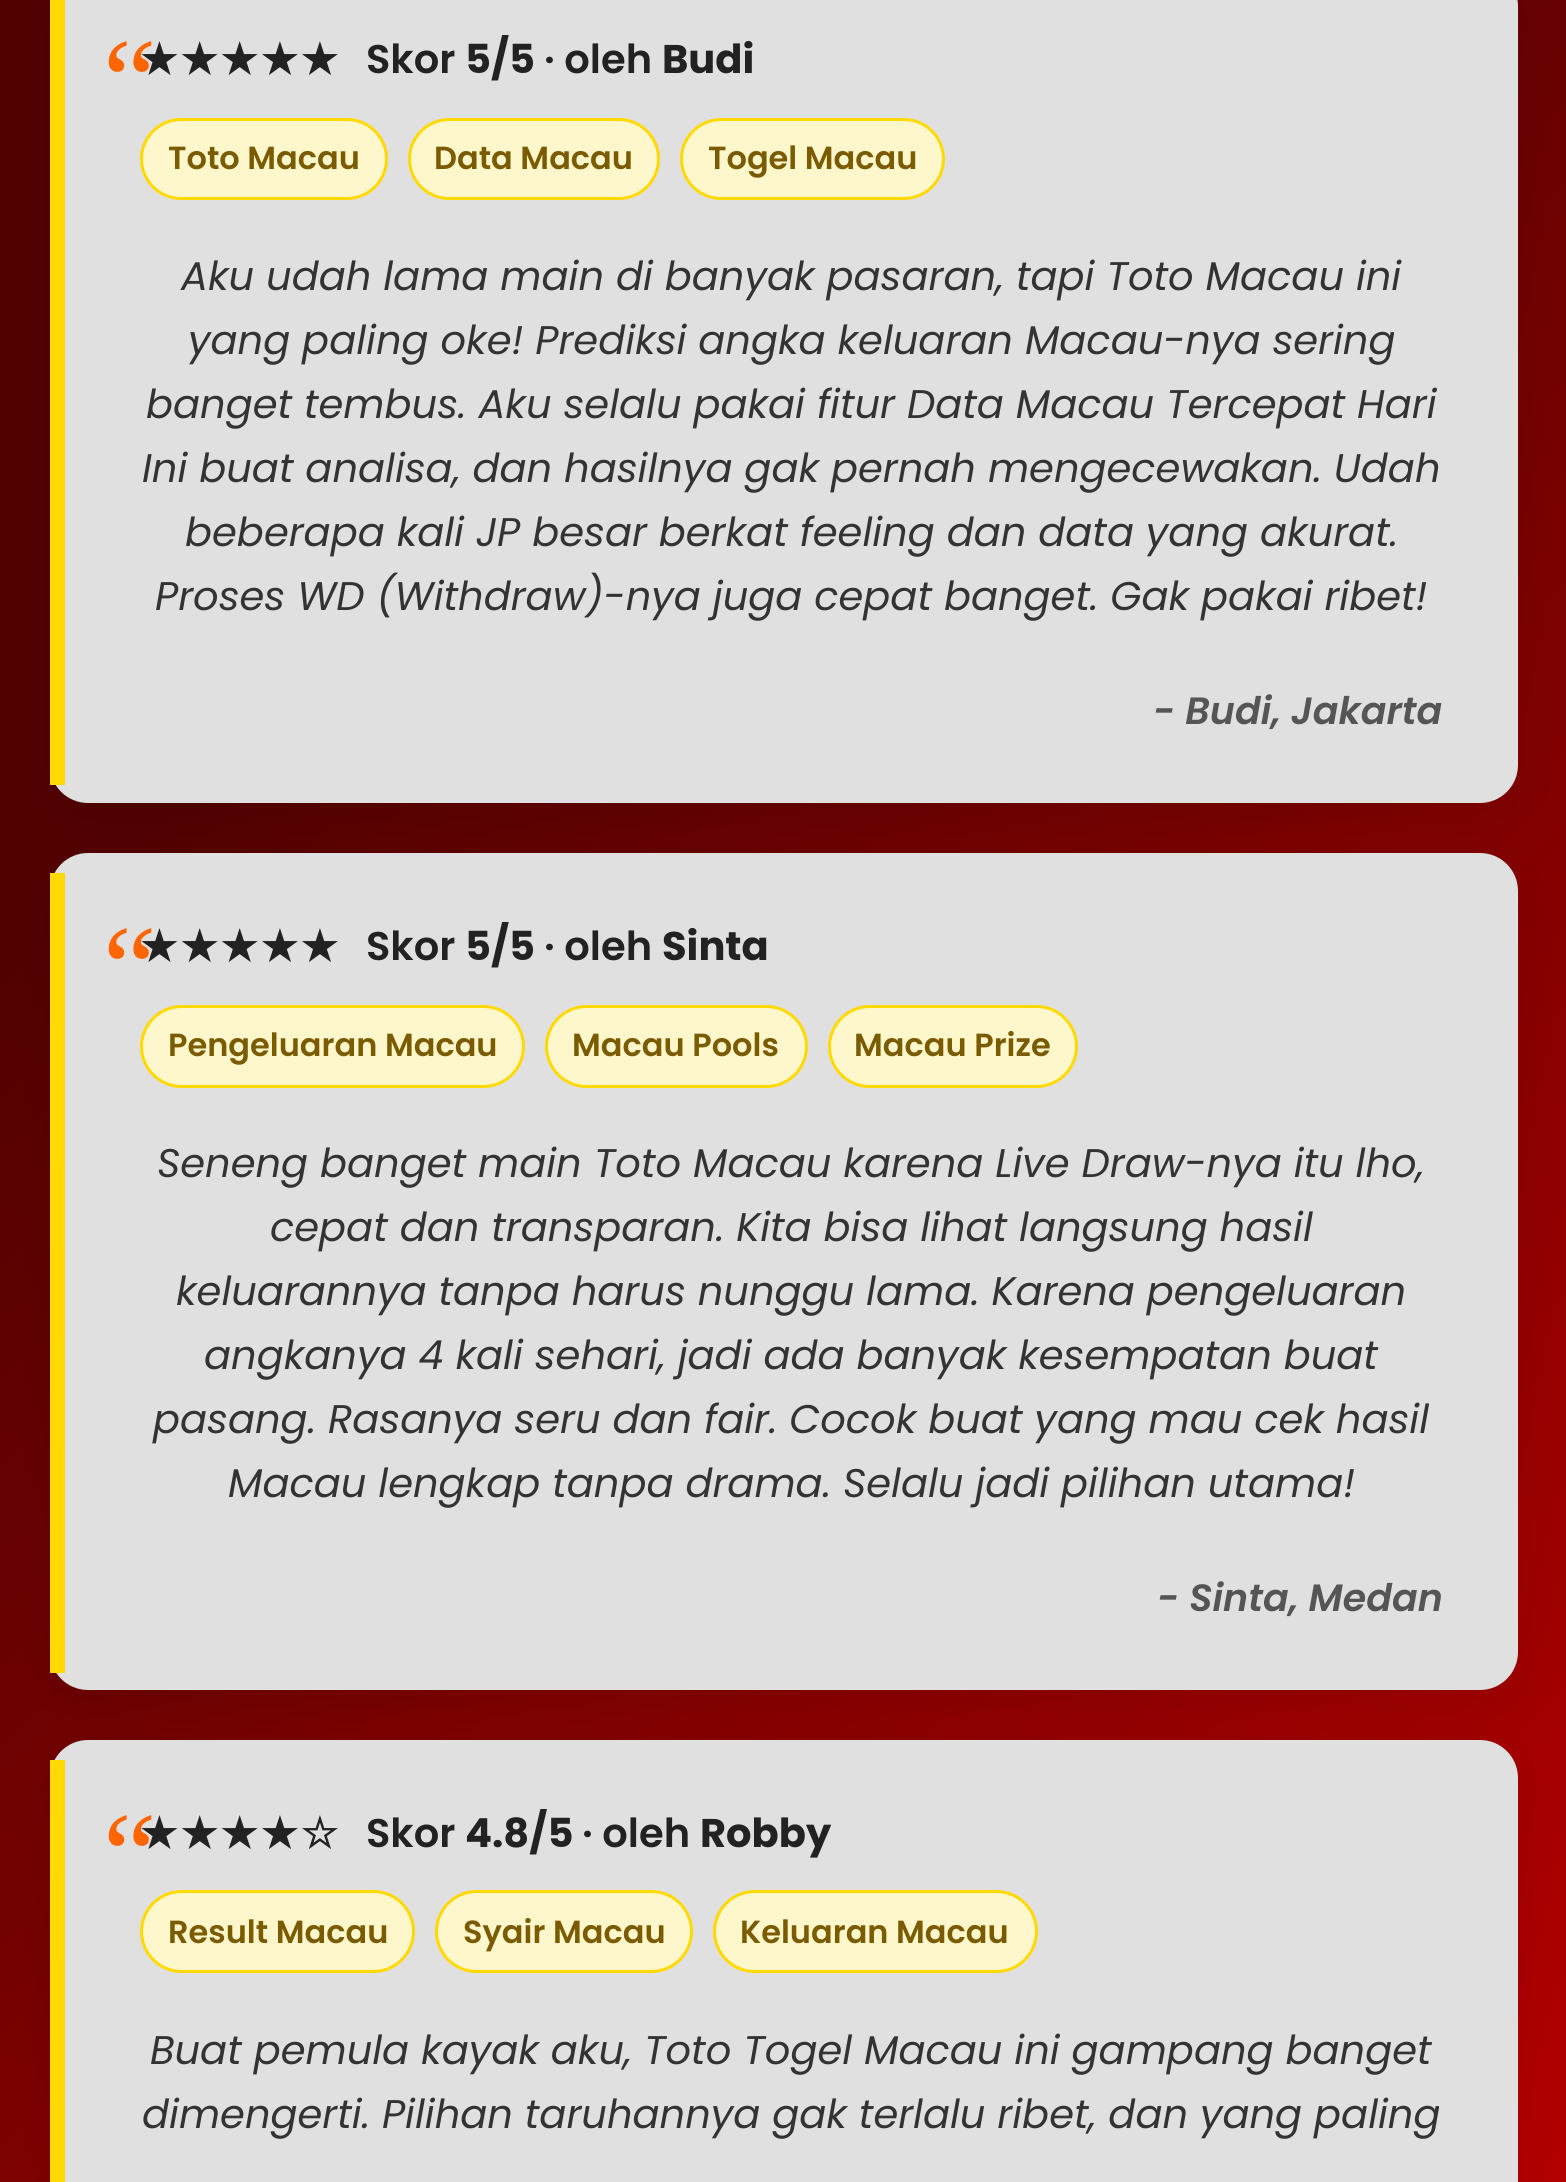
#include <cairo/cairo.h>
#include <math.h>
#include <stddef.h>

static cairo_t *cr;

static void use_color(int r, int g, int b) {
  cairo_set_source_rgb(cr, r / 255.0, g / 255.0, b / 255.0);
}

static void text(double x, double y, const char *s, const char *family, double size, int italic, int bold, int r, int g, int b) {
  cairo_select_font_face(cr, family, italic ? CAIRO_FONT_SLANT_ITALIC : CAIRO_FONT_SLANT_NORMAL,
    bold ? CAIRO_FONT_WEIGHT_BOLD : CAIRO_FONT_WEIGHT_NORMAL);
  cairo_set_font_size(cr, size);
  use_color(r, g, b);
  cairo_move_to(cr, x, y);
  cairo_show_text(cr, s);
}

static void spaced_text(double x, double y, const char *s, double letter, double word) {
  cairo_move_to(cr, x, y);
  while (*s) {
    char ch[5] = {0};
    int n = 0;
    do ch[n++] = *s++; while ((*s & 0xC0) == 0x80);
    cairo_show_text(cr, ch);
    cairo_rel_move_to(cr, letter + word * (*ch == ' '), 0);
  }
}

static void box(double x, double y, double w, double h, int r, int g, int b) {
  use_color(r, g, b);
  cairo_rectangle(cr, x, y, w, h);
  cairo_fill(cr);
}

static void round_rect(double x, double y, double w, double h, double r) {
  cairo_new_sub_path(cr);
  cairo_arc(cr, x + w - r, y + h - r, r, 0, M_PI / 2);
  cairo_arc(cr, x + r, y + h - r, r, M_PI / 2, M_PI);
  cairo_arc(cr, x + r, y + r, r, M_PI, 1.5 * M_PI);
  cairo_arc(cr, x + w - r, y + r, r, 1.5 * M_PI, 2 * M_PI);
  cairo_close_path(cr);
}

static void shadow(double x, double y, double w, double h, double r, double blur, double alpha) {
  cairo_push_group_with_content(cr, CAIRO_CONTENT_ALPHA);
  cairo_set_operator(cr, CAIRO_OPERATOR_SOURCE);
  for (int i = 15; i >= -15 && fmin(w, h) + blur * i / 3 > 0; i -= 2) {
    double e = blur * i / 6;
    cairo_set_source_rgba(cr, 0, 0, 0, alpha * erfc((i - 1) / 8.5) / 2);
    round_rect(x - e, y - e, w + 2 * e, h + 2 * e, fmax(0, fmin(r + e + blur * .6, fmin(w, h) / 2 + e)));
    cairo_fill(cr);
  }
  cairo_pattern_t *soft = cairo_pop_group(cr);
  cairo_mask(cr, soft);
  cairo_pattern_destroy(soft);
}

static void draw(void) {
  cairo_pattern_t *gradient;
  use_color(255, 255, 255);
  cairo_paint(cr);
  gradient = cairo_pattern_create_linear(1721, 2029, -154, 154);
  cairo_pattern_add_color_stop_rgba(gradient, 0, 0.706, 0, 0, 1);
  cairo_pattern_add_color_stop_rgba(gradient, 0.74, 0.322, 0.004, 0.004, 1);
  cairo_set_source(cr, gradient);
  cairo_pattern_destroy(gradient);
  cairo_rectangle(cr, 0, 0, 1566, 2182);
  cairo_fill(cr);
  use_color(0, 0, 0);
  shadow(50, -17, 1468, 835, 38, 22.5, 0.08);
  use_color(224, 224, 224);
  round_rect(50, -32, 1468, 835, 38);
  cairo_fill(cr);
  box(50, 0, 15, 785, 255, 217, 0);
  use_color(255, 247, 204);
  round_rect(141.5, 119.5, 245, 79, 39.5);
  cairo_fill_preserve(cr);
  use_color(255, 217, 0);
  cairo_set_line_width(cr, 3);
  cairo_stroke(cr);
  use_color(255, 247, 204);
  round_rect(409.5, 119.5, 249, 79, 39.5);
  cairo_fill_preserve(cr);
  use_color(255, 217, 0);
  cairo_stroke(cr);
  use_color(255, 247, 204);
  round_rect(681.5, 119.5, 262, 79, 39.5);
  cairo_fill_preserve(cr);
  use_color(255, 217, 0);
  cairo_stroke(cr);
  use_color(0, 0, 0);
  shadow(50, 868, 1468, 837, 38, 22.5, 0.08);
  use_color(224, 224, 224);
  round_rect(50, 853, 1468, 837, 38);
  cairo_fill(cr);
  box(50, 873, 15, 800, 255, 217, 0);
  use_color(255, 247, 204);
  round_rect(141.5, 1006.5, 382, 80, 40);
  cairo_fill_preserve(cr);
  use_color(255, 217, 0);
  cairo_stroke(cr);
  use_color(255, 247, 204);
  round_rect(546.5, 1006.5, 260, 80, 40);
  cairo_fill_preserve(cr);
  use_color(255, 217, 0);
  cairo_stroke(cr);
  use_color(255, 247, 204);
  round_rect(829.5, 1006.5, 247, 80, 40);
  cairo_fill_preserve(cr);
  use_color(255, 217, 0);
  cairo_stroke(cr);
  use_color(0, 0, 0);
  shadow(50, 1755, 1468, 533, 38, 22.5, 0.08);
  use_color(224, 224, 224);
  round_rect(50, 1740, 1468, 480, 38);
  cairo_fill(cr);
  box(50, 1760, 15, 422, 255, 217, 0);
  use_color(255, 247, 204);
  round_rect(141.5, 1891.5, 272, 80, 40);
  cairo_fill_preserve(cr);
  use_color(255, 217, 0);
  cairo_stroke(cr);
  use_color(255, 247, 204);
  round_rect(436.5, 1891.5, 255, 80, 40);
  cairo_fill_preserve(cr);
  use_color(255, 217, 0);
  cairo_stroke(cr);
  use_color(255, 247, 204);
  round_rect(714.5, 1891.5, 322, 80, 40);
  cairo_fill_preserve(cr);
  use_color(255, 217, 0);
  cairo_stroke(cr);
  cairo_select_font_face(cr, "DejaVu Sans", CAIRO_FONT_SLANT_NORMAL, CAIRO_FONT_WEIGHT_BOLD);
  cairo_set_font_size(cr, 42);
  use_color(34, 34, 34);
  spaced_text(140, 74, "★★★★★", 2.5, 0);
  text(103, 121, "“", "Liberation Serif", 120, 0, 0, 255, 102, 0);
  text(366, 73, "Skor", "Poppins SemiBold", 40, 0, 0, 34, 34, 34);
  text(465, 73, "5/5", "Poppins", 40, 0, 1, 34, 34, 34);
  text(544, 73, "· oleh", "Poppins SemiBold", 40, 0, 0, 34, 34, 34);
  text(662, 73, "Budi", "Poppins", 40, 0, 1, 34, 34, 34);
  text(168, 169, "Toto Macau", "Poppins SemiBold", 32, 0, 0, 122, 91, 0);
  text(434, 169, "Data Macau", "Poppins SemiBold", 32, 0, 0, 122, 91, 0);
  text(708, 169, "Togel Macau", "Poppins SemiBold", 32, 0, 0, 122, 91, 0);
  text(181, 290, "Aku udah lama main di banyak pasaran, tapi Toto Macau ini", "Poppins", 40, 1, 0, 51, 51, 51);
  text(188, 354, "yang paling oke! Prediksi angka keluaran Macau-nya sering", "Poppins", 40, 1, 0, 51, 51, 51);
  text(146, 418, "banget tembus. Aku selalu pakai fitur Data Macau Tercepat Hari", "Poppins", 40, 1, 0, 51, 51, 51);
  text(142, 482, "Ini buat analisa, dan hasilnya gak pernah mengecewakan. Udah", "Poppins", 40, 1, 0, 51, 51, 51);
  text(185, 546, "beberapa kali JP besar berkat feeling dan data yang akurat.", "Poppins", 40, 1, 0, 51, 51, 51);
  text(155, 610, "Proses WD (Withdraw)-nya juga cepat banget. Gak pakai ribet!", "Poppins", 40, 1, 0, 51, 51, 51);
  text(1153, 724, "- Budi, Jakarta", "Poppins SemiBold", 38, 1, 0, 85, 85, 85);
  cairo_select_font_face(cr, "DejaVu Sans", CAIRO_FONT_SLANT_NORMAL, CAIRO_FONT_WEIGHT_BOLD);
  cairo_set_font_size(cr, 42);
  use_color(34, 34, 34);
  spaced_text(140, 961, "★★★★★", 2.5, 0);
  text(103, 1008, "“", "Liberation Serif", 120, 0, 0, 255, 102, 0);
  text(366, 960, "Skor", "Poppins SemiBold", 40, 0, 0, 34, 34, 34);
  text(465, 960, "5/5", "Poppins", 40, 0, 1, 34, 34, 34);
  text(544, 960, "· oleh", "Poppins SemiBold", 40, 0, 0, 34, 34, 34);
  text(662, 960, "Sinta", "Poppins", 40, 0, 1, 34, 34, 34);
  text(168, 1056, "Pengeluaran Macau", "Poppins SemiBold", 32, 0, 0, 122, 91, 0);
  text(572, 1056, "Macau Pools", "Poppins SemiBold", 32, 0, 0, 122, 91, 0);
  text(854, 1056, "Macau Prize", "Poppins SemiBold", 32, 0, 0, 122, 91, 0);
  text(157, 1177, "Seneng banget main Toto Macau karena Live Draw-nya itu lho,", "Poppins", 40, 1, 0, 51, 51, 51);
  text(270, 1241, "cepat dan transparan. Kita bisa lihat langsung hasil", "Poppins", 40, 1, 0, 51, 51, 51);
  text(176, 1305, "keluarannya tanpa harus nunggu lama. Karena pengeluaran", "Poppins", 40, 1, 0, 51, 51, 51);
  text(204, 1369, "angkanya 4 kali sehari, jadi ada banyak kesempatan buat", "Poppins", 40, 1, 0, 51, 51, 51);
  text(153, 1433, "pasang. Rasanya seru dan fair. Cocok buat yang mau cek hasil", "Poppins", 40, 1, 0, 51, 51, 51);
  text(228, 1497, "Macau lengkap tanpa drama. Selalu jadi pilihan utama!", "Poppins", 40, 1, 0, 51, 51, 51);
  text(1157, 1611, "- Sinta, Medan", "Poppins SemiBold", 38, 1, 0, 85, 85, 85);
  cairo_select_font_face(cr, "DejaVu Sans", CAIRO_FONT_SLANT_NORMAL, CAIRO_FONT_WEIGHT_BOLD);
  cairo_set_font_size(cr, 42);
  use_color(34, 34, 34);
  spaced_text(140, 1848, "★★★★☆", 2.5, 0);
  text(103, 1895, "“", "Liberation Serif", 120, 0, 0, 255, 102, 0);
  text(366, 1847, "Skor", "Poppins SemiBold", 40, 0, 0, 34, 34, 34);
  text(465, 1847, "4.8/5", "Poppins", 40, 0, 1, 34, 34, 34);
  text(582, 1847, "· oleh", "Poppins SemiBold", 40, 0, 0, 34, 34, 34);
  text(700, 1847, "Robby", "Poppins", 40, 0, 1, 34, 34, 34);
  text(168, 1943, "Result Macau", "Poppins SemiBold", 32, 0, 0, 122, 91, 0);
  text(463, 1943, "Syair Macau", "Poppins SemiBold", 32, 0, 0, 122, 91, 0);
  text(740, 1943, "Keluaran Macau", "Poppins SemiBold", 32, 0, 0, 122, 91, 0);
  text(150, 2064, "Buat pemula kayak aku, Toto Togel Macau ini gampang banget", "Poppins", 40, 1, 0, 51, 51, 51);
  text(142, 2128, "dimengerti. Pilihan taruhannya gak terlalu ribet, dan yang paling", "Poppins", 40, 1, 0, 51, 51, 51);
}

int main(void) {
  cairo_surface_t *surface = cairo_image_surface_create(CAIRO_FORMAT_RGB24, 1566, 2182);
  cr = cairo_create(surface);
  cairo_font_options_t *options = cairo_font_options_create();
  cairo_font_options_set_hint_metrics(options, CAIRO_HINT_METRICS_OFF);
  cairo_font_options_set_hint_style(options, CAIRO_HINT_STYLE_NONE);
  cairo_set_font_options(cr, options);
  cairo_set_miter_limit(cr, 4);
  draw();
  cairo_surface_write_to_png(surface, "out.png");
  cairo_font_options_destroy(options);
  cairo_destroy(cr);
  cairo_surface_destroy(surface);
  return 0;
}
